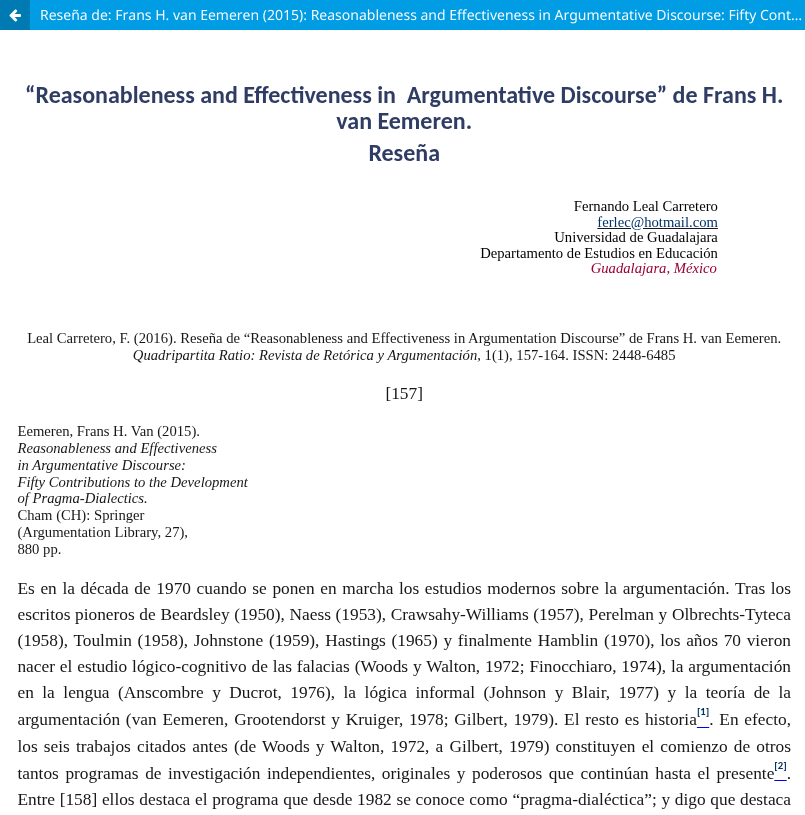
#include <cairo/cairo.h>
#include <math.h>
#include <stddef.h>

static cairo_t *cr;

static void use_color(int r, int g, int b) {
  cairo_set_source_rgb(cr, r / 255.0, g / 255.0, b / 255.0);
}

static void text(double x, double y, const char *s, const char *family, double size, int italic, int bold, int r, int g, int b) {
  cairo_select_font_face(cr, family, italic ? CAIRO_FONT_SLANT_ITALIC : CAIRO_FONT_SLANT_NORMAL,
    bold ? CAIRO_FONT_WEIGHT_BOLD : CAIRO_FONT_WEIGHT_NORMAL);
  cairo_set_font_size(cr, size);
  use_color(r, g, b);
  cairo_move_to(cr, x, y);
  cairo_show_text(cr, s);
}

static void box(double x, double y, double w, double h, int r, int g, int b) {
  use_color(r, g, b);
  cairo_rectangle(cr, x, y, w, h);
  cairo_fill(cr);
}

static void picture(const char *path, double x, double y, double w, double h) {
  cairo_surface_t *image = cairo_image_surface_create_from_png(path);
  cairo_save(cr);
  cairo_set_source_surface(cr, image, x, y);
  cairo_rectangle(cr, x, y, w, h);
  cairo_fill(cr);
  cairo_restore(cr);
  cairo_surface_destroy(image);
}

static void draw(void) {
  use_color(255, 255, 255);
  cairo_paint(cr);
  box(30, 0, 775, 30, 0, 157, 229);
  box(0, 0, 30, 30, 0, 122, 178);
  picture("img_01.png", 9, 9, 12, 13);
  picture("img_02.png", 17, 85, 774, 724);
  text(40, 20, "Reseña de: Frans H. van Eemeren (2015): Reasonableness and Effectiveness in Argumentative Discourse: Fifty Cont…", "Noto Sans", 14, 0, 0, 255, 255, 255);
}

int main(void) {
  cairo_surface_t *surface = cairo_image_surface_create(CAIRO_FORMAT_RGB24, 805, 815);
  cr = cairo_create(surface);
  cairo_font_options_t *options = cairo_font_options_create();
  cairo_font_options_set_hint_metrics(options, CAIRO_HINT_METRICS_OFF);
  cairo_font_options_set_hint_style(options, CAIRO_HINT_STYLE_NONE);
  cairo_set_font_options(cr, options);
  cairo_set_miter_limit(cr, 4);
  draw();
  cairo_surface_write_to_png(surface, "out.png");
  cairo_font_options_destroy(options);
  cairo_destroy(cr);
  cairo_surface_destroy(surface);
  return 0;
}
